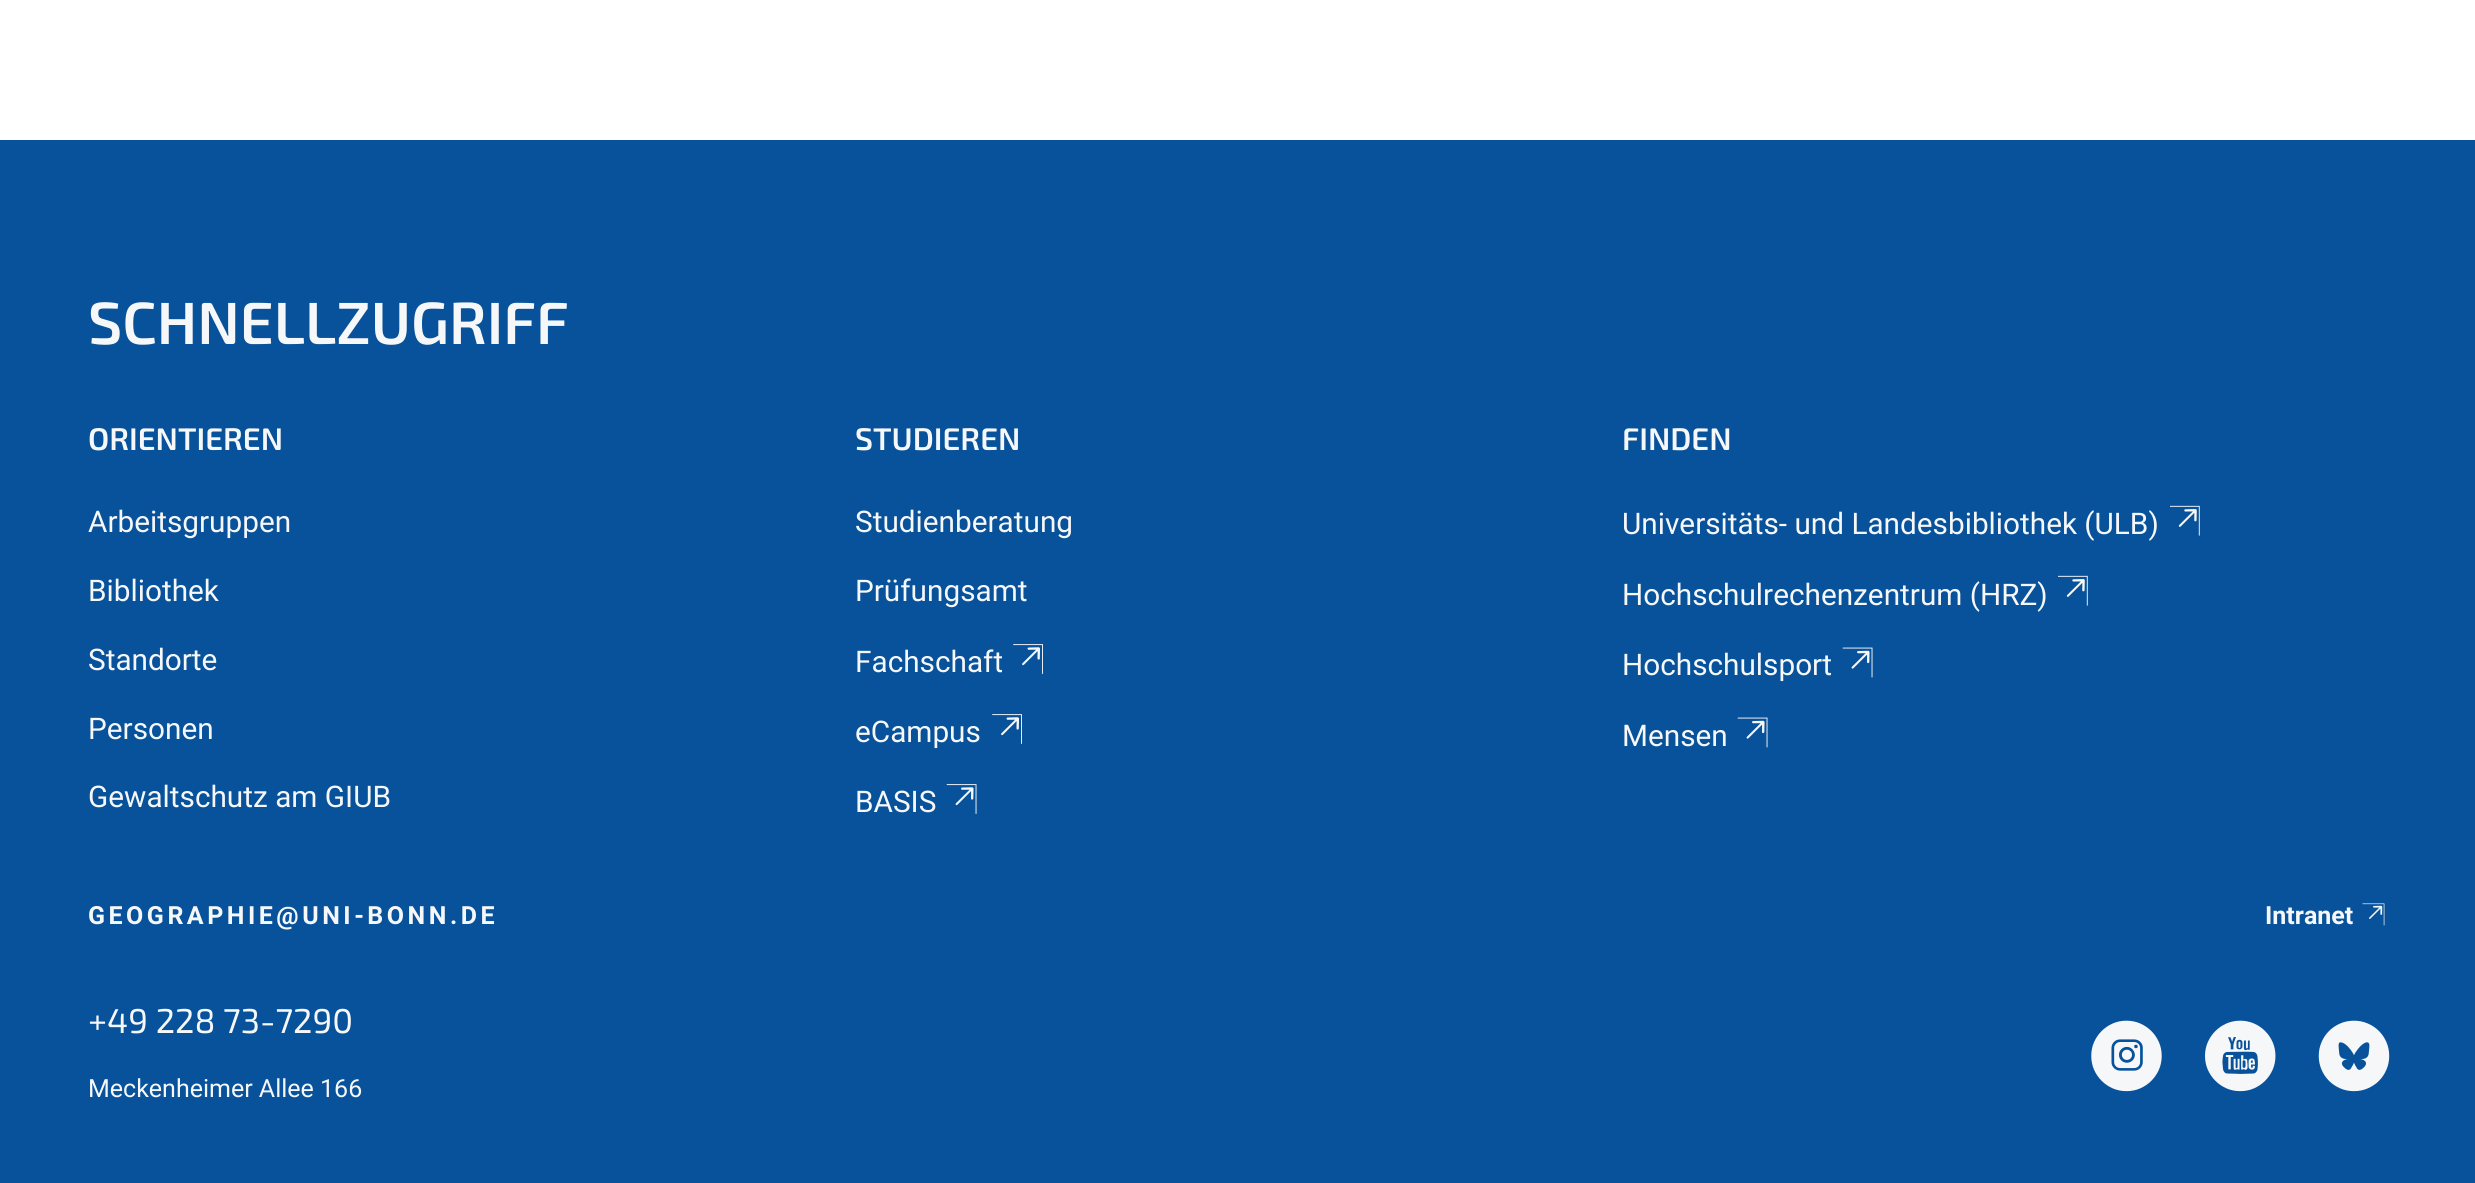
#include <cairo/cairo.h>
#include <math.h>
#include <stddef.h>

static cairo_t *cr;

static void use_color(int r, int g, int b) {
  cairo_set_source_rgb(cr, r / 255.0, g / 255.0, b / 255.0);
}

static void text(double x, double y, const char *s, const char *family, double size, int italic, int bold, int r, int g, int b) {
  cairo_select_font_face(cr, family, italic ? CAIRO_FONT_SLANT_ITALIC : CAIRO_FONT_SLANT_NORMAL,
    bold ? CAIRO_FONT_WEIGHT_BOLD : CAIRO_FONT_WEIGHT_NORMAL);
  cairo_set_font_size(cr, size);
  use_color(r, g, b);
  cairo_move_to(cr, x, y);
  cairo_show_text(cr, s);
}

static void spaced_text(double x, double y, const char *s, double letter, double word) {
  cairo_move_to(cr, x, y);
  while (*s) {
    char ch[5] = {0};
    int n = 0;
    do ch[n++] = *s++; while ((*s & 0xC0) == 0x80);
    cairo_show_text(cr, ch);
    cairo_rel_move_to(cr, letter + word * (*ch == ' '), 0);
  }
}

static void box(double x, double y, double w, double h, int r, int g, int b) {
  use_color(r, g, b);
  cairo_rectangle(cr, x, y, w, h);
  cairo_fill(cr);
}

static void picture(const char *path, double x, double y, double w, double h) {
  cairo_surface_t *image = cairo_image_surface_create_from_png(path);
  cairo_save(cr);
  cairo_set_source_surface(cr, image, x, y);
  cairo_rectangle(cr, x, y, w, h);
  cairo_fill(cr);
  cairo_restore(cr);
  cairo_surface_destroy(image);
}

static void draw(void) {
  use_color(255, 255, 255);
  cairo_paint(cr);
  box(0, 140, 2475, 1043, 7, 82, 154);
  picture("img_01.png", 1013, 644, 30, 30);
  picture("img_01.png", 992, 714, 30, 30);
  picture("img_02.png", 946, 784, 31, 30);
  picture("img_03.png", 2170, 505, 30, 31);
  picture("img_03.png", 2058, 575, 30, 31);
  picture("img_04.png", 1842, 647, 31, 31);
  picture("img_04.png", 1737, 717, 31, 31);
  picture("img_05.png", 2362, 903, 23, 23);
  picture("img_06.png", 2091, 1020, 71, 72);
  picture("img_07.png", 2205, 1020, 71, 72);
  picture("img_08.png", 2318, 1020, 72, 72);
  text(88, 344, "SCHNELLZUGRIFF", "Exo 2 SemiBold", 59.5, 0, 0, 246, 247, 249);
  text(88, 450, "ORIENTIEREN", "Exo 2 SemiBold", 31.25, 0, 0, 246, 247, 249);
  text(88, 532, "Arbeitsgruppen", "Roboto", 29.75, 0, 0, 246, 247, 249);
  text(88, 601, "Bibliothek", "Roboto", 29.75, 0, 0, 246, 247, 249);
  text(88, 670, "Standorte", "Roboto", 29.75, 0, 0, 246, 247, 249);
  text(88, 739, "Personen", "Roboto", 29.75, 0, 0, 246, 247, 249);
  text(88, 807, "Gewaltschutz am GIUB", "Roboto", 29.75, 0, 0, 246, 247, 249);
  text(855, 450, "STUDIEREN", "Exo 2 SemiBold", 31.25, 0, 0, 246, 247, 249);
  text(855, 532, "Studienberatung", "Roboto", 29.75, 0, 0, 246, 247, 249);
  text(855, 601, "Prüfungsamt", "Roboto", 29.75, 0, 0, 246, 247, 249);
  text(855, 672, "Fachschaft", "Roboto", 29.75, 0, 0, 246, 247, 249);
  text(855, 742, "eCampus", "Roboto", 29.75, 0, 0, 246, 247, 249);
  text(855, 812, "BASIS", "Roboto", 29.75, 0, 0, 246, 247, 249);
  text(1622, 450, "FINDEN", "Exo 2 SemiBold", 31.25, 0, 0, 246, 247, 249);
  text(1622, 534, "Universitäts- und Landesbibliothek (ULB)", "Roboto", 29.75, 0, 0, 246, 247, 249);
  text(1622, 605, "Hochschulrechenzentrum (HRZ)", "Roboto", 29.75, 0, 0, 246, 247, 249);
  text(1622, 675, "Hochschulsport", "Roboto", 29.75, 0, 0, 246, 247, 249);
  text(1622, 746, "Mensen", "Roboto", 29.75, 0, 0, 246, 247, 249);
  cairo_select_font_face(cr, "Roboto", CAIRO_FONT_SLANT_NORMAL, CAIRO_FONT_WEIGHT_BOLD);
  cairo_set_font_size(cr, 25);
  spaced_text(88, 924, "GEOGRAPHIE@UNI-BONN.DE", 3.5, 0);
  text(88, 1033, "+49 228 73-7290", "Exo 2", 34.5, 0, 0, 246, 247, 249);
  text(88, 1097, "Meckenheimer Allee 166", "Roboto", 25, 0, 0, 246, 247, 249);
  text(2265, 924, "Intranet", "Roboto", 25, 0, 1, 246, 247, 249);
}

int main(void) {
  cairo_surface_t *surface = cairo_image_surface_create(CAIRO_FORMAT_RGB24, 2475, 1183);
  cr = cairo_create(surface);
  cairo_font_options_t *options = cairo_font_options_create();
  cairo_font_options_set_hint_metrics(options, CAIRO_HINT_METRICS_OFF);
  cairo_font_options_set_hint_style(options, CAIRO_HINT_STYLE_NONE);
  cairo_set_font_options(cr, options);
  cairo_set_miter_limit(cr, 4);
  draw();
  cairo_surface_write_to_png(surface, "out.png");
  cairo_font_options_destroy(options);
  cairo_destroy(cr);
  cairo_surface_destroy(surface);
  return 0;
}
